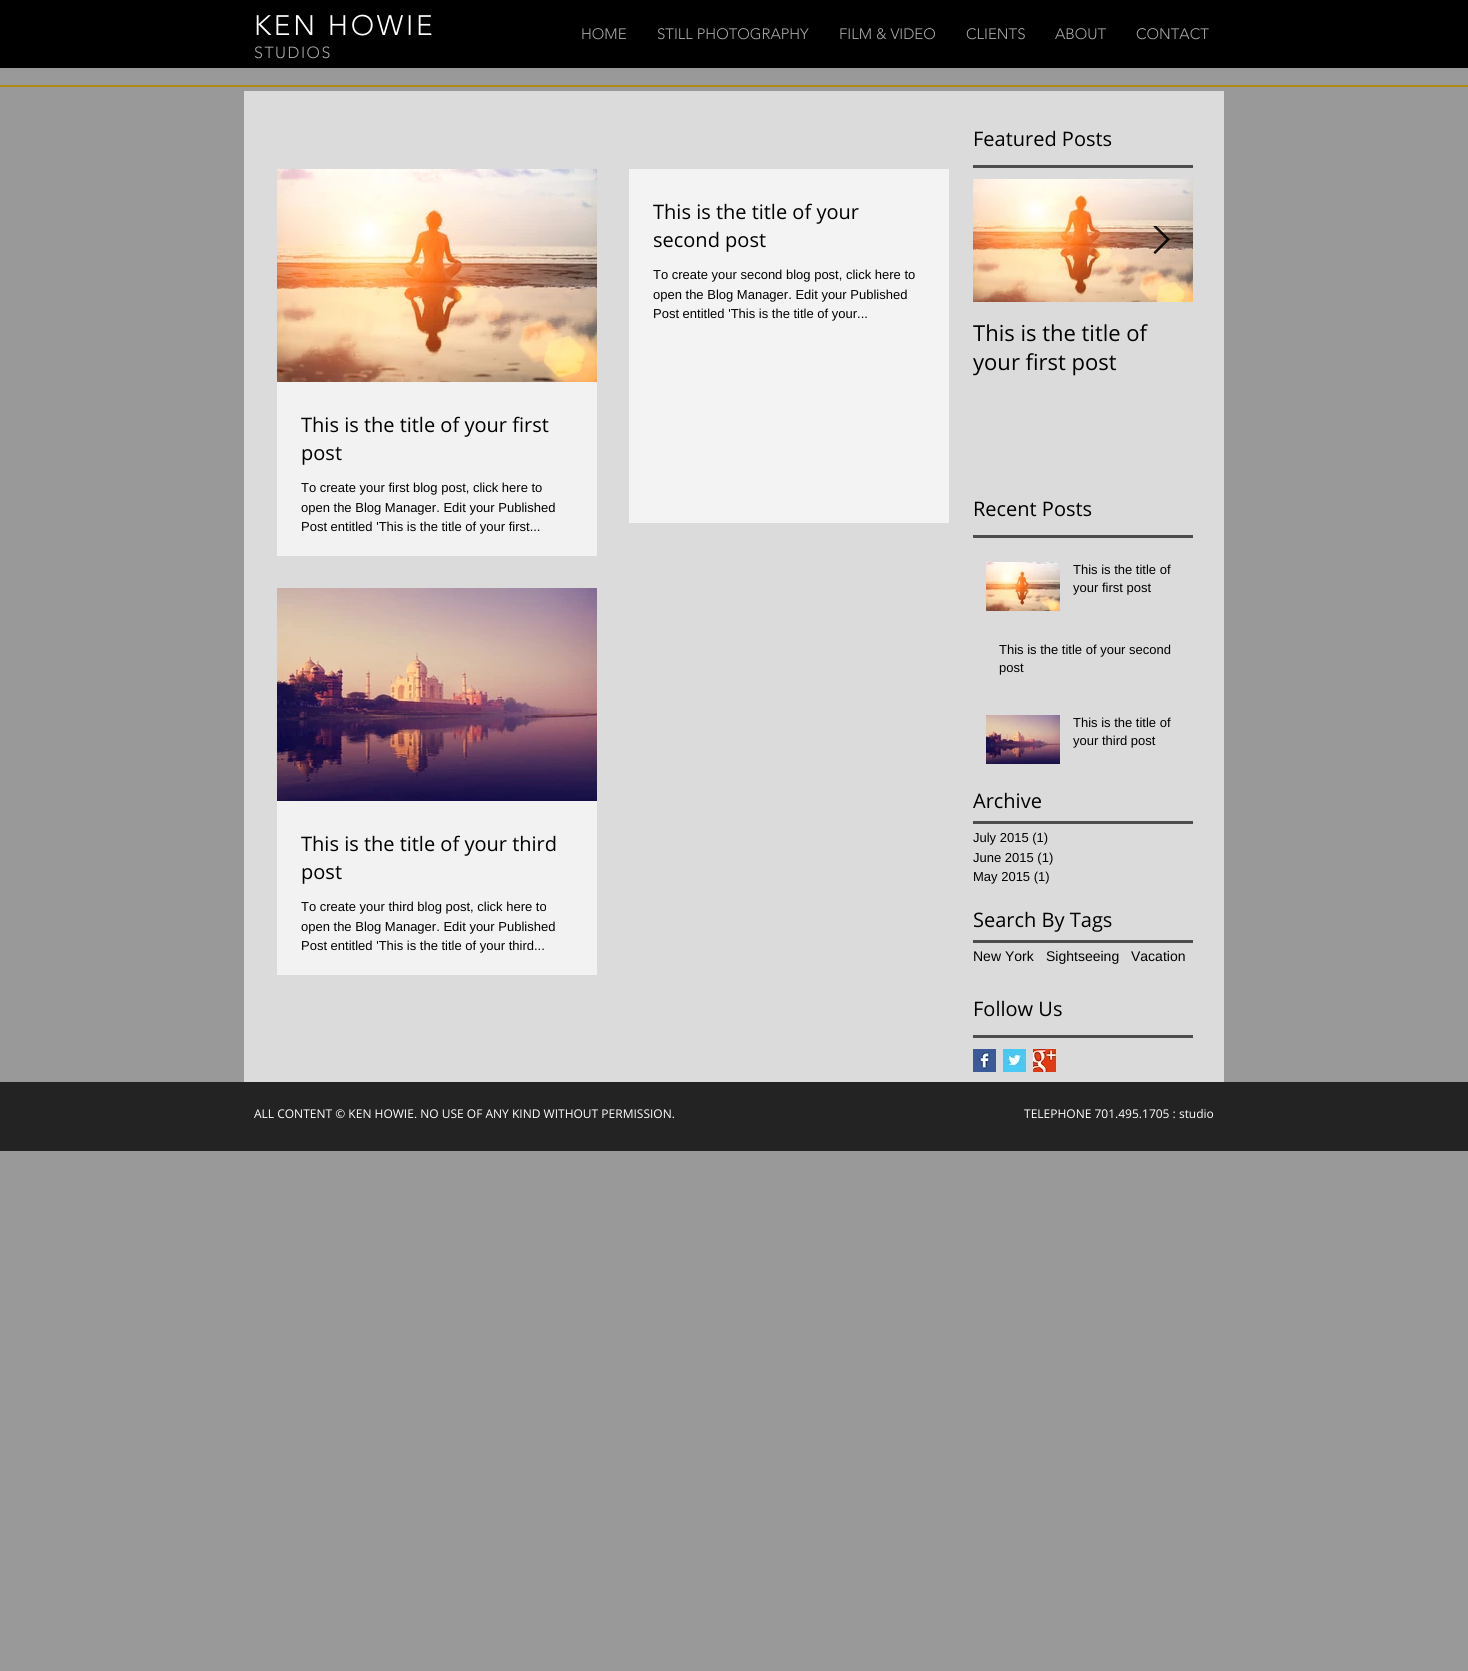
#include <cairo/cairo.h>
#include <math.h>
#include <stddef.h>

static cairo_t *cr;

static void use_color(int r, int g, int b) {
  cairo_set_source_rgb(cr, r / 255.0, g / 255.0, b / 255.0);
}

static void text(double x, double y, const char *s, const char *family, double size, int italic, int bold, int r, int g, int b) {
  cairo_select_font_face(cr, family, italic ? CAIRO_FONT_SLANT_ITALIC : CAIRO_FONT_SLANT_NORMAL,
    bold ? CAIRO_FONT_WEIGHT_BOLD : CAIRO_FONT_WEIGHT_NORMAL);
  cairo_set_font_size(cr, size);
  use_color(r, g, b);
  cairo_move_to(cr, x, y);
  cairo_show_text(cr, s);
}

static void spaced_text(double x, double y, const char *s, double letter, double word) {
  cairo_move_to(cr, x, y);
  while (*s) {
    char ch[5] = {0};
    int n = 0;
    do ch[n++] = *s++; while ((*s & 0xC0) == 0x80);
    cairo_show_text(cr, ch);
    cairo_rel_move_to(cr, letter + word * (*ch == ' '), 0);
  }
}

static void box(double x, double y, double w, double h, int r, int g, int b) {
  use_color(r, g, b);
  cairo_rectangle(cr, x, y, w, h);
  cairo_fill(cr);
}

static void picture(const char *path, double x, double y, double w, double h) {
  cairo_surface_t *image = cairo_image_surface_create_from_png(path);
  cairo_save(cr);
  cairo_set_source_surface(cr, image, x, y);
  cairo_rectangle(cr, x, y, w, h);
  cairo_fill(cr);
  cairo_restore(cr);
  cairo_surface_destroy(image);
}

static void draw(void) {
  use_color(153, 153, 153);
  cairo_paint(cr);
  box(0, 0, 1468, 68, 0, 0, 0);
  box(0, 85, 1468, 2, 176, 139, 19);
  box(244, 91, 980, 991, 219, 219, 219);
  box(973, 165, 220, 3, 77, 77, 77);
  box(629, 169, 320, 354, 243, 243, 243);
  picture("img_01.png", 277, 169, 320, 213);
  box(277, 382, 320, 174, 242, 242, 242);
  picture("img_02.png", 277, 588, 320, 213);
  box(277, 801, 320, 174, 242, 242, 242);
  picture("img_04.png", 973, 179, 220, 123);
  picture("img_03.png", 1153, 226, 17, 28);
  box(973, 535, 220, 3, 77, 77, 77);
  picture("img_05.png", 986, 562, 74, 49);
  picture("img_06.png", 986, 715, 74, 49);
  box(973, 821, 220, 3, 77, 77, 77);
  box(973, 940, 220, 3, 77, 77, 77);
  box(973, 1035, 220, 3, 77, 77, 77);
  picture("img_07.png", 973, 1049, 23, 23);
  picture("img_08.png", 1003, 1049, 23, 23);
  picture("img_09.png", 1033, 1049, 23, 23);
  box(0, 1082, 1468, 69, 35, 35, 35);
  cairo_select_font_face(cr, "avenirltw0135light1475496 Light", CAIRO_FONT_SLANT_NORMAL, CAIRO_FONT_WEIGHT_NORMAL);
  cairo_set_font_size(cr, 28);
  use_color(255, 255, 255);
  spaced_text(254, 35, "KEN HOWIE", 2.75, 0);
  text(581, 39, "HOME", "avenirltw0135light1475496 Light", 15, 0, 0, 169, 169, 169);
  text(657, 39, "STILL PHOTOGRAPHY", "avenirltw0135light1475496 Light", 15, 0, 0, 169, 169, 169);
  text(839, 39, "FILM & VIDEO", "avenirltw0135light1475496 Light", 15, 0, 0, 169, 169, 169);
  text(966, 39, "CLIENTS", "avenirltw0135light1475496 Light", 15, 0, 0, 169, 169, 169);
  text(1055, 39, "ABOUT", "avenirltw0135light1475496 Light", 15, 0, 0, 169, 169, 169);
  text(1136, 39, "CONTACT", "avenirltw0135light1475496 Light", 15, 0, 0, 169, 169, 169);
  cairo_set_font_size(cr, 16);
  spaced_text(254, 58, "STUDIOS", 1.5, 0);
  text(973, 146, "Featured Posts", "Open Sans", 20, 0, 0, 0, 0, 0);
  text(653, 219, "This is the title of your", "Open Sans", 20, 0, 0, 0, 0, 0);
  text(653, 247, "second post", "Open Sans", 20, 0, 0, 0, 0, 0);
  text(653, 279, "To create your second blog post, click here to", "Liberation Sans", 13, 0, 0, 0, 0, 0);
  text(653, 299, "open the Blog Manager. Edit your Published", "Liberation Sans", 13, 0, 0, 0, 0, 0);
  text(653, 318, "Post entitled 'This is the title of your...", "Liberation Sans", 13, 0, 0, 0, 0, 0);
  text(301, 432, "This is the title of your first", "Open Sans", 20, 0, 0, 0, 0, 0);
  text(301, 460, "post", "Open Sans", 20, 0, 0, 0, 0, 0);
  text(301, 492, "To create your first blog post, click here to", "Liberation Sans", 13, 0, 0, 0, 0, 0);
  text(301, 512, "open the Blog Manager. Edit your Published", "Liberation Sans", 13, 0, 0, 0, 0, 0);
  text(301, 531, "Post entitled 'This is the title of your first...", "Liberation Sans", 13, 0, 0, 0, 0, 0);
  text(301, 851, "This is the title of your third", "Open Sans", 20, 0, 0, 0, 0, 0);
  text(301, 879, "post", "Open Sans", 20, 0, 0, 0, 0, 0);
  text(301, 911, "To create your third blog post, click here to", "Liberation Sans", 13, 0, 0, 0, 0, 0);
  text(301, 931, "open the Blog Manager. Edit your Published", "Liberation Sans", 13, 0, 0, 0, 0, 0);
  text(301, 950, "Post entitled 'This is the title of your third...", "Liberation Sans", 13, 0, 0, 0, 0, 0);
  text(973, 341, "This is the title of", "Open Sans", 22, 0, 0, 0, 0, 0);
  text(973, 370, "your first post", "Open Sans", 22, 0, 0, 0, 0, 0);
  text(973, 516, "Recent Posts", "Open Sans", 20, 0, 0, 0, 0, 0);
  text(1073, 574, "This is the title of", "Liberation Sans", 13, 0, 0, 0, 0, 0);
  text(1073, 592, "your first post", "Liberation Sans", 13, 0, 0, 0, 0, 0);
  text(999, 654, "This is the title of your second", "Liberation Sans", 13, 0, 0, 0, 0, 0);
  text(999, 672, "post", "Liberation Sans", 13, 0, 0, 0, 0, 0);
  text(1073, 727, "This is the title of", "Liberation Sans", 13, 0, 0, 0, 0, 0);
  text(1073, 745, "your third post", "Liberation Sans", 13, 0, 0, 0, 0, 0);
  text(973, 808, "Archive", "Open Sans", 20, 0, 0, 0, 0, 0);
  text(973, 842, "July 2015 (1)", "Liberation Sans", 13, 0, 0, 0, 0, 0);
  text(973, 862, "June 2015 (1)", "Liberation Sans", 13, 0, 0, 0, 0, 0);
  text(973, 881, "May 2015 (1)", "Liberation Sans", 13, 0, 0, 0, 0, 0);
  text(973, 927, "Search By Tags", "Open Sans", 20, 0, 0, 0, 0, 0);
  text(973, 961, "New York", "Liberation Sans", 14, 0, 0, 0, 0, 0);
  text(1046, 961, "Sightseeing", "Liberation Sans", 14, 0, 0, 0, 0, 0);
  text(1131, 961, "Vacation", "Liberation Sans", 14, 0, 0, 0, 0, 0);
  text(973, 1016, "Follow Us", "Open Sans", 20, 0, 0, 0, 0, 0);
  text(254, 1118, "ALL CONTENT © KEN HOWIE. NO USE OF ANY KIND WITHOUT PERMISSION.", "Open Sans", 12, 0, 0, 255, 255, 255);
  text(1024, 1118, "TELEPHONE 701.495.1705 : studio", "Open Sans", 12, 0, 0, 255, 255, 255);
}

int main(void) {
  cairo_surface_t *surface = cairo_image_surface_create(CAIRO_FORMAT_RGB24, 1468, 1671);
  cr = cairo_create(surface);
  cairo_font_options_t *options = cairo_font_options_create();
  cairo_font_options_set_hint_metrics(options, CAIRO_HINT_METRICS_OFF);
  cairo_font_options_set_hint_style(options, CAIRO_HINT_STYLE_NONE);
  cairo_set_font_options(cr, options);
  cairo_set_miter_limit(cr, 4);
  draw();
  cairo_surface_write_to_png(surface, "out.png");
  cairo_font_options_destroy(options);
  cairo_destroy(cr);
  cairo_surface_destroy(surface);
  return 0;
}
